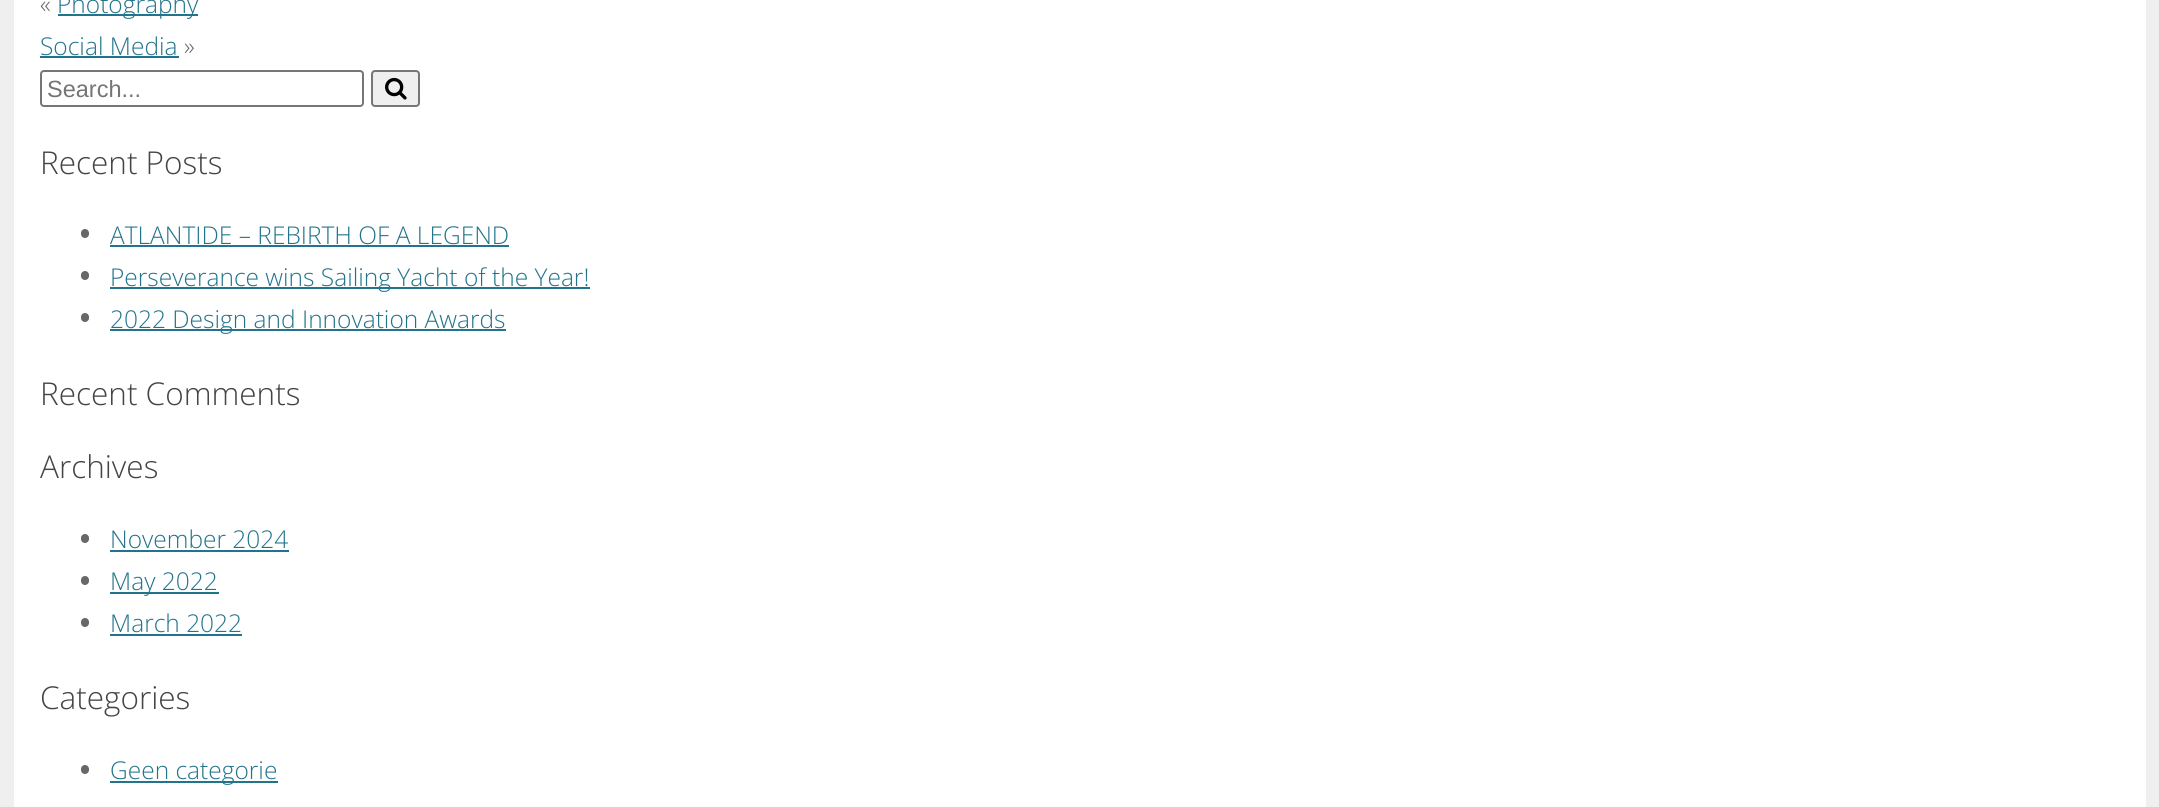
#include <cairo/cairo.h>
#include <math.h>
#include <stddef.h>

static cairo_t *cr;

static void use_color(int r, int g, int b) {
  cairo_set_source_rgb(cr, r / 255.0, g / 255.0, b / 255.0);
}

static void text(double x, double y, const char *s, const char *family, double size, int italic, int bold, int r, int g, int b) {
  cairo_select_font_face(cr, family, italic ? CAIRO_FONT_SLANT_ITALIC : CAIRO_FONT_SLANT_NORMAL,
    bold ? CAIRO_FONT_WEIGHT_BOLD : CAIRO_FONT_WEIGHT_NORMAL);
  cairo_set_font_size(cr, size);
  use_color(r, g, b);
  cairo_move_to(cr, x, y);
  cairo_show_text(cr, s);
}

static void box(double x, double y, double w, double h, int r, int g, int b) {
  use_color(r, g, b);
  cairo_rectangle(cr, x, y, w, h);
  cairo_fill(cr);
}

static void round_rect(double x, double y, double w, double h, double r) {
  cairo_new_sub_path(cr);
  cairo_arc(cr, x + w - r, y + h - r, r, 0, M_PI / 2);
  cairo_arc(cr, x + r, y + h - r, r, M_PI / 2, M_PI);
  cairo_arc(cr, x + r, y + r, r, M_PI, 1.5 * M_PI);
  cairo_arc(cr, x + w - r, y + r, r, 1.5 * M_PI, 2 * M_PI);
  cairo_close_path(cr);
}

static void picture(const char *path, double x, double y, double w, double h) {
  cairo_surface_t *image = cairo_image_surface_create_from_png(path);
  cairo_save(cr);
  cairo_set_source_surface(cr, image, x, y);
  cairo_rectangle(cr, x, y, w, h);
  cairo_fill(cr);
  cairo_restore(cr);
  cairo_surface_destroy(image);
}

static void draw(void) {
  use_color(239, 239, 239);
  cairo_paint(cr);
  box(14, 0, 2132, 807, 255, 255, 255);
  box(58, 14, 140, 2, 33, 116, 140);
  box(40, 56, 139, 2, 33, 116, 140);
  round_rect(41, 71, 322, 35, 3);
  use_color(118, 118, 118);
  cairo_stroke(cr);
  use_color(239, 239, 239);
  round_rect(372, 71, 47, 35, 3);
  cairo_fill_preserve(cr);
  use_color(118, 118, 118);
  cairo_stroke(cr);
  picture("img_01.png", 385, 77, 22, 23);
  use_color(104, 104, 104);
  round_rect(81, 229, 8, 9, 4);
  cairo_fill(cr);
  box(110, 245, 399, 2, 33, 116, 140);
  use_color(104, 104, 104);
  round_rect(81, 271, 8, 9, 4);
  cairo_fill(cr);
  box(110, 287, 480, 2, 33, 116, 140);
  use_color(104, 104, 104);
  round_rect(81, 313, 8, 9, 4);
  cairo_fill(cr);
  box(110, 329, 396, 2, 33, 116, 140);
  use_color(104, 104, 104);
  round_rect(81, 534, 8, 9, 4);
  cairo_fill(cr);
  box(110, 550, 179, 2, 33, 116, 140);
  use_color(104, 104, 104);
  round_rect(81, 576, 8, 9, 4);
  cairo_fill(cr);
  box(110, 592, 109, 2, 33, 116, 140);
  use_color(104, 104, 104);
  round_rect(81, 618, 8, 9, 4);
  cairo_fill(cr);
  box(110, 634, 132, 2, 33, 116, 140);
  use_color(104, 104, 104);
  round_rect(81, 765, 8, 9, 4);
  cairo_fill(cr);
  box(110, 781, 168, 2, 33, 116, 140);
  text(40, 13, "«", "Open Sans Light", 24.5, 0, 0, 104, 104, 104);
  text(57, 13, "Photography", "Open Sans Light", 24.5, 0, 0, 33, 116, 140);
  text(40, 55, "Social Media", "Open Sans Light", 24.5, 0, 0, 33, 116, 140);
  text(184, 55, "»", "Open Sans Light", 24.5, 0, 0, 104, 104, 104);
  text(47, 97, "Search...", "Liberation Sans", 23.5, 0, 0, 117, 117, 117);
  text(40, 174, "Recent Posts", "Open Sans Light", 31.5, 0, 0, 68, 68, 68);
  text(110, 244, "ATLANTIDE – REBIRTH OF A LEGEND", "Open Sans Light", 24.5, 0, 0, 33, 116, 140);
  text(110, 286, "Perseverance wins Sailing Yacht of the Year!", "Open Sans Light", 24.5, 0, 0, 33, 116, 140);
  text(110, 328, "2022 Design and Innovation Awards", "Open Sans Light", 24.5, 0, 0, 33, 116, 140);
  text(40, 405, "Recent Comments", "Open Sans Light", 31.5, 0, 0, 68, 68, 68);
  text(40, 478, "Archives", "Open Sans Light", 31.5, 0, 0, 68, 68, 68);
  text(110, 548, "November 2024", "Open Sans Light", 24.5, 0, 0, 33, 116, 140);
  text(110, 590, "May 2022", "Open Sans Light", 24.5, 0, 0, 33, 116, 140);
  text(110, 632, "March 2022", "Open Sans Light", 24.5, 0, 0, 33, 116, 140);
  text(40, 709, "Categories", "Open Sans Light", 31.5, 0, 0, 68, 68, 68);
  text(110, 779, "Geen categorie", "Open Sans Light", 24.5, 0, 0, 33, 116, 140);
}

int main(void) {
  cairo_surface_t *surface = cairo_image_surface_create(CAIRO_FORMAT_RGB24, 2159, 807);
  cr = cairo_create(surface);
  cairo_font_options_t *options = cairo_font_options_create();
  cairo_font_options_set_hint_metrics(options, CAIRO_HINT_METRICS_OFF);
  cairo_font_options_set_hint_style(options, CAIRO_HINT_STYLE_NONE);
  cairo_set_font_options(cr, options);
  cairo_set_miter_limit(cr, 4);
  draw();
  cairo_surface_write_to_png(surface, "out.png");
  cairo_font_options_destroy(options);
  cairo_destroy(cr);
  cairo_surface_destroy(surface);
  return 0;
}
